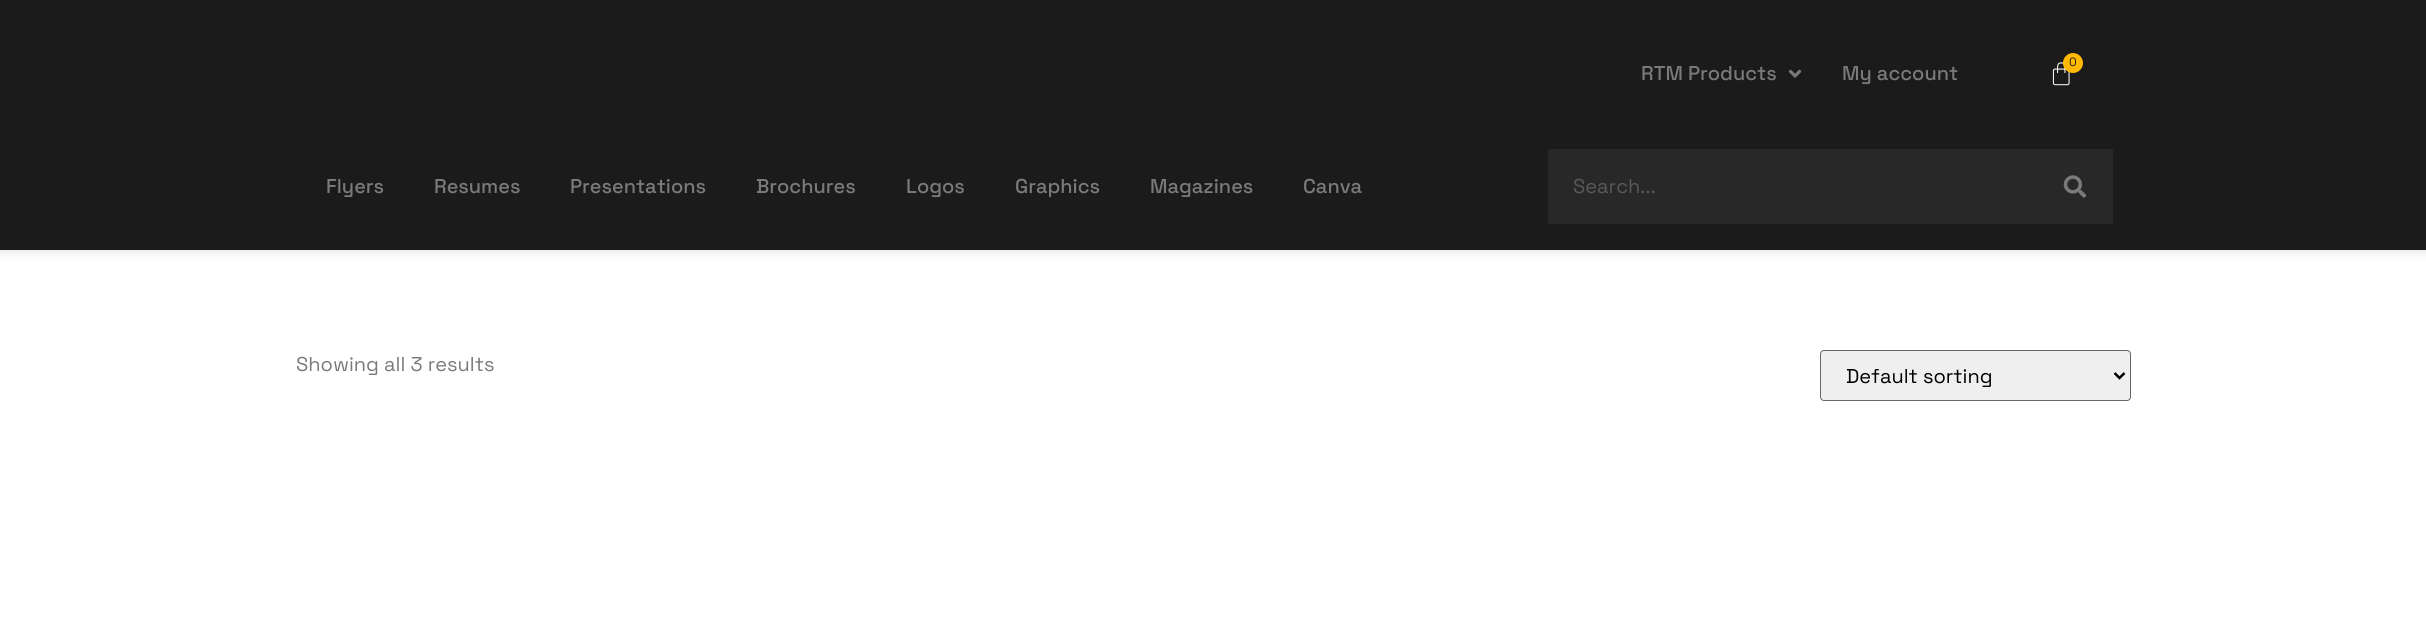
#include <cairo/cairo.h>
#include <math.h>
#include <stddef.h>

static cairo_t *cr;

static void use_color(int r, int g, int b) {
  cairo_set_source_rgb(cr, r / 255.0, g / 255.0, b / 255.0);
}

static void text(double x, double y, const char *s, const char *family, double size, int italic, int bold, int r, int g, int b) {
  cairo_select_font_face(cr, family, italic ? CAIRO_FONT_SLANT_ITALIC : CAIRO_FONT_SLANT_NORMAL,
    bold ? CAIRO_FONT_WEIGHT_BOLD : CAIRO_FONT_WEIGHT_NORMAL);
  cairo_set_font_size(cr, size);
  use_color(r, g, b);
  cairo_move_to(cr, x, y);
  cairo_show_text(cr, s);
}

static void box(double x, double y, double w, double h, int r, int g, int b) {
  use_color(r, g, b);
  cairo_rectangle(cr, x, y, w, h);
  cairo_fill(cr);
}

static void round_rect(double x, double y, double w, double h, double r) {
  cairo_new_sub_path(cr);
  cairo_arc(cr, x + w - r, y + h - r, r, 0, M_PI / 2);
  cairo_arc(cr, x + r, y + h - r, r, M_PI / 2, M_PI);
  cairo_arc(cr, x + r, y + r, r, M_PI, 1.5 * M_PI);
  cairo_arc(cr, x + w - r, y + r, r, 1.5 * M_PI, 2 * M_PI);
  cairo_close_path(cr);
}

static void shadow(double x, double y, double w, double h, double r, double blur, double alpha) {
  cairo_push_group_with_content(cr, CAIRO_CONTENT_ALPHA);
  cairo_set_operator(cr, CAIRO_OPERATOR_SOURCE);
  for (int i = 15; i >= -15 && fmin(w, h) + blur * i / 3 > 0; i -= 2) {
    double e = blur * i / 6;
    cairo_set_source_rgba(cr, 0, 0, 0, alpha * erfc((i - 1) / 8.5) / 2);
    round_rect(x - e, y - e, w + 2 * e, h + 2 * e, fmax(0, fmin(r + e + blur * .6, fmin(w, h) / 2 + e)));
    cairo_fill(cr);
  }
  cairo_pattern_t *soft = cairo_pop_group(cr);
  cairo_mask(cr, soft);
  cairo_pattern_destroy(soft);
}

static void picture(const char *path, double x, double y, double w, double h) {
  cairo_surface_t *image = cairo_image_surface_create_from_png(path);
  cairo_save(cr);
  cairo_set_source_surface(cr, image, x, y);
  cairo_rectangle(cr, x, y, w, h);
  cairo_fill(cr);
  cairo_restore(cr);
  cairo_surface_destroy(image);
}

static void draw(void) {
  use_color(255, 255, 255);
  cairo_paint(cr);
  use_color(0, 0, 0);
  shadow(0, 0, 2426, 250, 0, 6, 0.15);
  box(0, 0, 2426, 250, 27, 27, 27);
  picture("img_01.png", 2052, 62, 18, 24);
  use_color(255, 185, 1);
  cairo_arc(cr, 2073, 63, 10, 0, 2 * M_PI);
  cairo_fill(cr);
  picture("img_02.png", 1788, 69, 14, 9);
  box(1548, 149, 565, 75, 40, 40, 40);
  picture("img_03.png", 2063, 175, 24, 23);
  use_color(239, 239, 239);
  round_rect(1820.5, 350.5, 310, 50, 3.5);
  cairo_fill_preserve(cr);
  use_color(102, 102, 102);
  cairo_set_line_width(cr, 1);
  cairo_stroke(cr);
  cairo_new_path(cr);
  cairo_move_to(cr, 2114.5, 373);
  cairo_line_to(cr, 2119.5, 378);
  cairo_line_to(cr, 2124.5, 373);
  use_color(0, 0, 0);
  cairo_set_line_width(cr, 2.5);
  cairo_stroke(cr);
  text(2069, 66, "0", "Space Grotesk", 12, 0, 0, 27, 27, 27);
  text(1641, 80, "RTM Products", "Space Grotesk Medium", 20, 0, 0, 122, 122, 122);
  text(1842, 80, "My account", "Space Grotesk Medium", 20, 0, 0, 122, 122, 122);
  text(326, 193, "Flyers", "Space Grotesk Medium", 20, 0, 0, 122, 122, 122);
  text(434, 193, "Resumes", "Space Grotesk Medium", 20, 0, 0, 122, 122, 122);
  text(570, 193, "Presentations", "Space Grotesk Medium", 20, 0, 0, 122, 122, 122);
  text(756, 193, "Brochures", "Space Grotesk Medium", 20, 0, 0, 122, 122, 122);
  text(906, 193, "Logos", "Space Grotesk Medium", 20, 0, 0, 122, 122, 122);
  text(1015, 193, "Graphics", "Space Grotesk Medium", 20, 0, 0, 122, 122, 122);
  text(1150, 193, "Magazines", "Space Grotesk Medium", 20, 0, 0, 122, 122, 122);
  text(1303, 193, "Canva", "Space Grotesk Medium", 20, 0, 0, 122, 122, 122);
  text(1573, 193, "Search...", "Space Grotesk", 20, 0, 0, 89, 89, 89);
  text(296, 371, "Showing all 3 results", "Space Grotesk", 20, 0, 0, 122, 122, 122);
  text(1846, 383, "Default sorting", "Space Grotesk", 20, 0, 0, 0, 0, 0);
}

int main(void) {
  cairo_surface_t *surface = cairo_image_surface_create(CAIRO_FORMAT_RGB24, 2426, 628);
  cr = cairo_create(surface);
  cairo_font_options_t *options = cairo_font_options_create();
  cairo_font_options_set_hint_metrics(options, CAIRO_HINT_METRICS_OFF);
  cairo_font_options_set_hint_style(options, CAIRO_HINT_STYLE_NONE);
  cairo_set_font_options(cr, options);
  cairo_set_miter_limit(cr, 4);
  draw();
  cairo_surface_write_to_png(surface, "out.png");
  cairo_font_options_destroy(options);
  cairo_destroy(cr);
  cairo_surface_destroy(surface);
  return 0;
}
